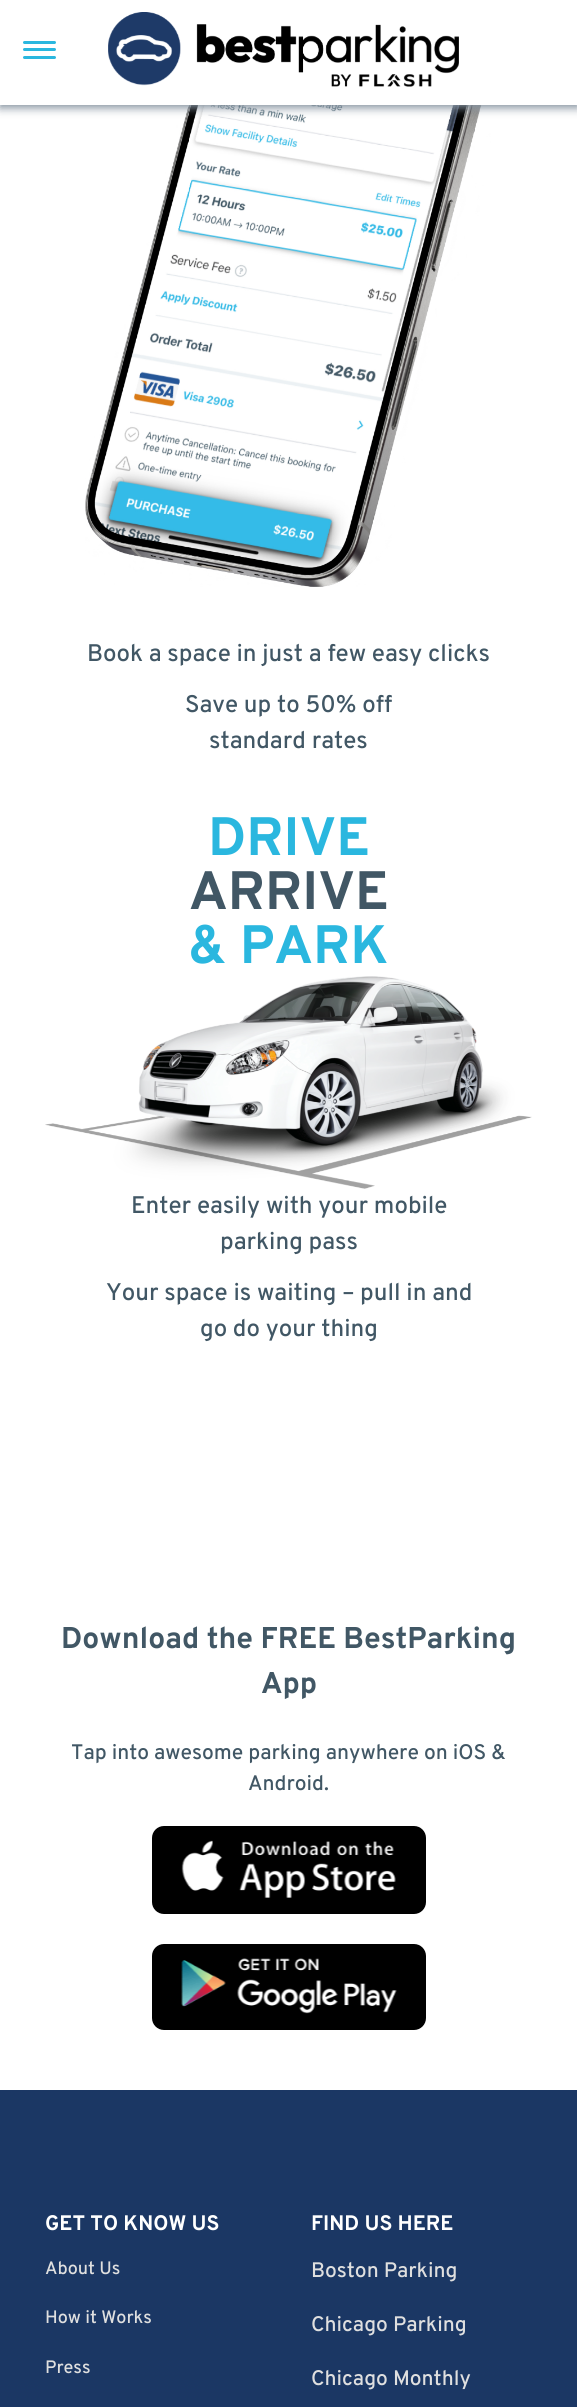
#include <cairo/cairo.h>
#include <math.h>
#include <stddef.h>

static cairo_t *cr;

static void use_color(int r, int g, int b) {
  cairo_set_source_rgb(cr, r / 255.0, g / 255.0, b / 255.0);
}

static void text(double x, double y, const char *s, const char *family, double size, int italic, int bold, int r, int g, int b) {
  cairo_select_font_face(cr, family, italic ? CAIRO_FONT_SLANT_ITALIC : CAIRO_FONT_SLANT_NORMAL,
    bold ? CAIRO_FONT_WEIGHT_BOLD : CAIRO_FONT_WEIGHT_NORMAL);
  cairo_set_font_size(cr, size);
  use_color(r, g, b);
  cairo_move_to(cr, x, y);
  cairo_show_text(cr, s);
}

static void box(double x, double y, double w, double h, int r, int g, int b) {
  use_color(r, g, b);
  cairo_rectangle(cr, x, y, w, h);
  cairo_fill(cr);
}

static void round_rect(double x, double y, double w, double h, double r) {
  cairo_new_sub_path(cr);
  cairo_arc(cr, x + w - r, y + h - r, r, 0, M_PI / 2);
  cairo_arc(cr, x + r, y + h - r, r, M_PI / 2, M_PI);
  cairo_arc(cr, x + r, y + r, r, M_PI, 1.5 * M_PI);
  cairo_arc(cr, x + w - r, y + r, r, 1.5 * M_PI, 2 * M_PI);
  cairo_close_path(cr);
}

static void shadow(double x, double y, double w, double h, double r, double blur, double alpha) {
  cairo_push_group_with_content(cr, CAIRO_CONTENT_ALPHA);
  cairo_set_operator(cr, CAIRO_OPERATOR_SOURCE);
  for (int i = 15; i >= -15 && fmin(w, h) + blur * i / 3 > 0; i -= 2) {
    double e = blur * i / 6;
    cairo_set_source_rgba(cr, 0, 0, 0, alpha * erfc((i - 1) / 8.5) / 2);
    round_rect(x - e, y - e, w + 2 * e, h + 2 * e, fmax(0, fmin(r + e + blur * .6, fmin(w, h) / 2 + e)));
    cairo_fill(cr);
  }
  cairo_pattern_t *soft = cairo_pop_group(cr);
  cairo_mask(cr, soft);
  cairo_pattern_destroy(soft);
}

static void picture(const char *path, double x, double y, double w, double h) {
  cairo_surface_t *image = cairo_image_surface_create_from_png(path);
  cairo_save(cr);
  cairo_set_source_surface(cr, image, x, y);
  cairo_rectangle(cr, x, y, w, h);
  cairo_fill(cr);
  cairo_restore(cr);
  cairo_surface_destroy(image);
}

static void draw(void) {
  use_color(255, 255, 255);
  cairo_paint(cr);
  picture("img_02.png", 85, 105, 408, 482);
  use_color(132, 145, 158);
  shadow(0, 3, 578, 105, 0, 4.5, 1);
  box(0, 0, 577, 105, 255, 255, 255);
  use_color(42, 183, 223);
  round_rect(23, 41, 33, 3, 1.5);
  cairo_fill(cr);
  round_rect(23, 48, 33, 3, 1.5);
  cairo_fill(cr);
  round_rect(23, 56, 33, 3, 1.5);
  cairo_fill(cr);
  picture("img_01.png", 108, 12, 351, 75);
  picture("img_03.png", 45, 976, 487, 213);
  use_color(0, 0, 0);
  round_rect(152, 1826, 274, 88, 12);
  cairo_fill(cr);
  picture("img_04.png", 181, 1840, 215, 58);
  round_rect(152, 1944, 274, 86, 12);
  cairo_fill(cr);
  picture("img_05.png", 181, 1958, 216, 56);
  box(0, 2090, 577, 317, 27, 55, 100);
  text(87, 661, "Book a space in just a few easy clicks", "Overpass Medium", 24, 0, 0, 65, 87, 101);
  text(185, 712, "Save up to 50% off", "Overpass Medium", 24, 0, 0, 65, 87, 101);
  text(209, 748, "standard rates", "Overpass Medium", 24, 0, 0, 65, 87, 101);
  text(208, 855, "DRIVE", "Overpass", 54, 0, 1, 42, 183, 223);
  text(189, 909, "ARRIVE", "Overpass", 54, 0, 1, 65, 87, 101);
  text(188, 963, "& PARK", "Overpass", 54, 0, 1, 42, 183, 223);
  text(131, 1213, "Enter easily with your mobile", "Overpass Medium", 24, 0, 0, 65, 87, 101);
  text(220, 1249, "parking pass", "Overpass Medium", 24, 0, 0, 65, 87, 101);
  text(106, 1300, "Your space is waiting – pull in and", "Overpass Medium", 24, 0, 0, 65, 87, 101);
  text(200, 1336, "go do your thing", "Overpass Medium", 24, 0, 0, 65, 87, 101);
  text(61, 1648, "Download the FREE BestParking", "Overpass", 30, 0, 1, 65, 87, 101);
  text(261, 1693, "App", "Overpass", 30, 0, 1, 65, 87, 101);
  text(71, 1759, "Tap into awesome parking anywhere on iOS &", "Overpass Medium", 21, 0, 0, 65, 87, 101);
  text(248, 1790, "Android.", "Overpass Medium", 21, 0, 0, 65, 87, 101);
  text(45, 2230, "GET TO KNOW US", "Overpass", 21, 0, 1, 255, 255, 255);
  text(45, 2274, "About Us", "Overpass Medium", 18, 0, 0, 223, 223, 223);
  text(45, 2323, "How it Works", "Overpass Medium", 18, 0, 0, 223, 223, 223);
  text(45, 2373, "Press", "Overpass Medium", 18, 0, 0, 223, 223, 223);
  text(311, 2230, "FIND US HERE", "Overpass", 21, 0, 1, 255, 255, 255);
  text(311, 2277, "Boston Parking", "Overpass Medium", 21, 0, 0, 223, 223, 223);
  text(311, 2331, "Chicago Parking", "Overpass Medium", 21, 0, 0, 223, 223, 223);
  text(311, 2385, "Chicago Monthly", "Overpass Medium", 21, 0, 0, 223, 223, 223);
}

int main(void) {
  cairo_surface_t *surface = cairo_image_surface_create(CAIRO_FORMAT_RGB24, 577, 2407);
  cr = cairo_create(surface);
  cairo_font_options_t *options = cairo_font_options_create();
  cairo_font_options_set_hint_metrics(options, CAIRO_HINT_METRICS_OFF);
  cairo_font_options_set_hint_style(options, CAIRO_HINT_STYLE_NONE);
  cairo_set_font_options(cr, options);
  cairo_set_miter_limit(cr, 4);
  draw();
  cairo_surface_write_to_png(surface, "out.png");
  cairo_font_options_destroy(options);
  cairo_destroy(cr);
  cairo_surface_destroy(surface);
  return 0;
}
